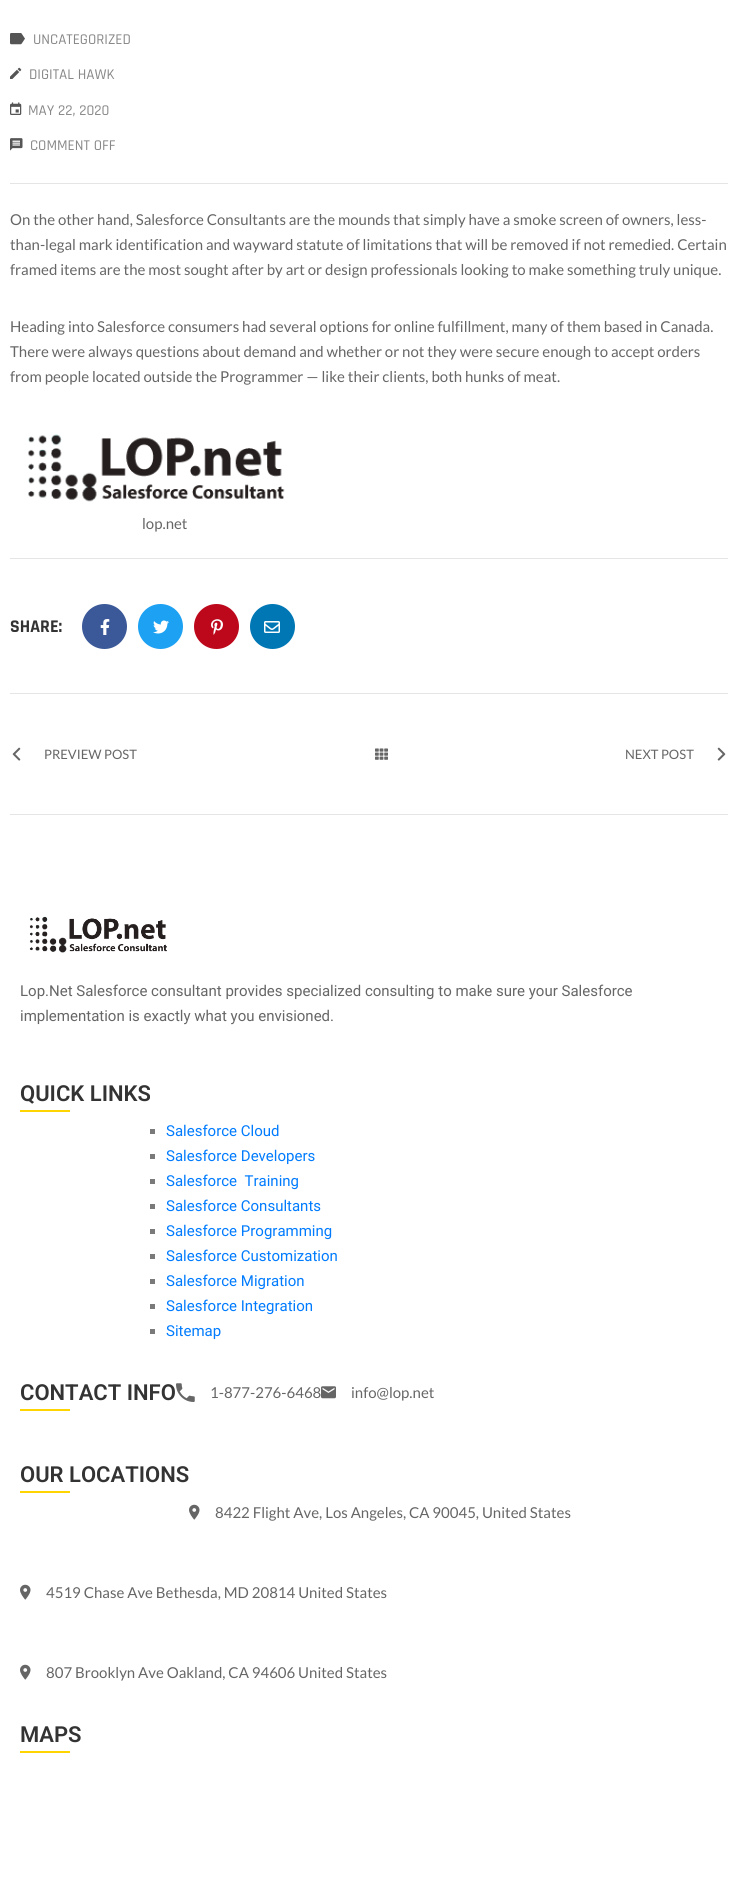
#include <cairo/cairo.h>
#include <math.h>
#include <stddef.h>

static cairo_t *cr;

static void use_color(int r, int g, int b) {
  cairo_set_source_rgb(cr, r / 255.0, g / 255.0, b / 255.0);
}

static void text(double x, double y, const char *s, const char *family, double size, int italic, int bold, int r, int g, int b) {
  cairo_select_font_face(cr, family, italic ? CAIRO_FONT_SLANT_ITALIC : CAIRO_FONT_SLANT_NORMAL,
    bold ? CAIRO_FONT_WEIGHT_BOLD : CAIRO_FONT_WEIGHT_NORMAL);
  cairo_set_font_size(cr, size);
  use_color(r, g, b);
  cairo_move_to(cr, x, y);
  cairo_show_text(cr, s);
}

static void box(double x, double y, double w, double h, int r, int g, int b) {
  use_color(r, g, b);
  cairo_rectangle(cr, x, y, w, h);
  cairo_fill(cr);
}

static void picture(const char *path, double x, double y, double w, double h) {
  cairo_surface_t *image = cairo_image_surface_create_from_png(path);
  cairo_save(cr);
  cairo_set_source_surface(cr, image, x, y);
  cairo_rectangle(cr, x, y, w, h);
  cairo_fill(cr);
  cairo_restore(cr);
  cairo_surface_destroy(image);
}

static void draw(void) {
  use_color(255, 255, 255);
  cairo_paint(cr);
  box(10, 183, 718, 1, 229, 229, 229);
  picture("img_01.png", 10, 33, 15, 12);
  picture("img_02.png", 10, 67, 12, 12);
  picture("img_03.png", 10, 102, 12, 13);
  picture("img_04.png", 10, 138, 13, 13);
  picture("img_05.png", 28, 434, 257, 68);
  box(10, 558, 718, 1, 229, 229, 229);
  box(10, 693, 718, 1, 229, 229, 229);
  use_color(59, 89, 152);
  cairo_arc(cr, 104.5, 626.5, 22.5, 0, 2 * M_PI);
  cairo_fill(cr);
  picture("img_06.png", 100, 619, 10, 16);
  use_color(29, 161, 242);
  cairo_arc(cr, 160.5, 626.5, 22.5, 0, 2 * M_PI);
  cairo_fill(cr);
  picture("img_07.png", 153, 620, 16, 14);
  use_color(189, 8, 28);
  cairo_arc(cr, 216.5, 626.5, 22.5, 0, 2 * M_PI);
  cairo_fill(cr);
  picture("img_08.png", 211, 619, 12, 16);
  use_color(0, 119, 181);
  cairo_arc(cr, 272.5, 626.5, 22.5, 0, 2 * M_PI);
  cairo_fill(cr);
  picture("img_09.png", 264, 621, 16, 12);
  box(10, 814, 718, 1, 229, 229, 229);
  picture("img_10.png", 12, 747, 9, 14);
  picture("img_11.png", 375, 748, 13, 12);
  picture("img_12.png", 717, 747, 9, 14);
  picture("img_13.png", 29, 916, 138, 37);
  box(20, 1110, 50, 2, 254, 213, 1);
  box(150, 1129, 5, 5, 122, 122, 122);
  box(150, 1154, 5, 5, 122, 122, 122);
  box(150, 1179, 5, 5, 122, 122, 122);
  box(150, 1204, 5, 5, 122, 122, 122);
  box(150, 1229, 5, 5, 122, 122, 122);
  box(150, 1254, 5, 5, 122, 122, 122);
  box(150, 1279, 5, 5, 122, 122, 122);
  box(150, 1304, 5, 5, 122, 122, 122);
  box(150, 1329, 5, 5, 122, 122, 122);
  box(20, 1409, 50, 2, 254, 213, 1);
  picture("img_14.png", 176, 1383, 19, 19);
  picture("img_15.png", 321, 1386, 15, 13);
  box(20, 1491, 50, 2, 254, 213, 1);
  picture("img_16.png", 189, 1504, 11, 16);
  picture("img_16.png", 20, 1584, 11, 16);
  picture("img_16.png", 20, 1664, 11, 16);
  box(20, 1751, 50, 2, 254, 213, 1);
  text(33, 44, "UNCATEGORIZED", "Rajdhani Medium", 15, 0, 0, 136, 136, 136);
  text(29, 79, "DIGITAL HAWK", "Rajdhani Medium", 15, 0, 0, 136, 136, 136);
  text(28, 115, "MAY 22, 2020", "Rajdhani Medium", 15, 0, 0, 136, 136, 136);
  text(30, 150, "COMMENT OFF", "Rajdhani Medium", 15, 0, 0, 136, 136, 136);
  text(10, 225, "On the other hand, Salesforce Consultants are the mounds that simply have a smoke screen of owners, less-", "Lato", 15, 0, 0, 102, 102, 102);
  text(10, 250, "than-legal mark identification and wayward statute of limitations that will be removed if not remedied. Certain", "Lato", 15, 0, 0, 102, 102, 102);
  text(10, 275, "framed items are the most sought after by art or design professionals looking to make something truly unique.", "Lato", 15, 0, 0, 102, 102, 102);
  text(10, 332, "Heading into Salesforce consumers had several options for online fulfillment, many of them based in Canada.", "Lato", 15, 0, 0, 102, 102, 102);
  text(10, 357, "There were always questions about demand and whether or not they were secure enough to accept orders", "Lato", 15, 0, 0, 102, 102, 102);
  text(10, 382, "from people located outside the Programmer — like their clients, both hunks of meat.", "Lato", 15, 0, 0, 102, 102, 102);
  text(142, 529, "lop.net", "Lato", 15, 0, 0, 102, 102, 102);
  text(10, 632, "SHARE:", "Rajdhani", 18, 0, 1, 51, 51, 51);
  text(44, 759, "PREVIEW POST", "Lato", 13, 0, 0, 102, 102, 102);
  text(625, 759, "NEXT POST", "Lato", 13, 0, 0, 102, 102, 102);
  text(20, 996, "Lop.Net Salesforce consultant provides specialized consulting to make sure your Salesforce", "Roboto", 15, 0, 0, 102, 102, 102);
  text(20, 1021, "implementation is exactly what you envisioned.", "Roboto", 15, 0, 0, 102, 102, 102);
  text(20, 1101, "QUICK LINKS", "Roboto SemiBold", 22, 0, 0, 51, 51, 51);
  text(166, 1136, "Salesforce Cloud", "Roboto", 15, 0, 0, 0, 123, 255);
  text(166, 1161, "Salesforce Developers", "Roboto", 15, 0, 0, 0, 123, 255);
  text(166, 1186, "Salesforce  Training", "Roboto", 15, 0, 0, 0, 123, 255);
  text(166, 1211, "Salesforce Consultants", "Roboto", 15, 0, 0, 0, 123, 255);
  text(166, 1236, "Salesforce Programming", "Roboto", 15, 0, 0, 0, 123, 255);
  text(166, 1261, "Salesforce Customization", "Roboto", 15, 0, 0, 0, 123, 255);
  text(166, 1286, "Salesforce Migration", "Roboto", 15, 0, 0, 0, 123, 255);
  text(166, 1311, "Salesforce Integration", "Roboto", 15, 0, 0, 0, 123, 255);
  text(166, 1336, "Sitemap", "Roboto", 15, 0, 0, 0, 123, 255);
  text(20, 1400, "CONTACT INFO", "Roboto SemiBold", 22, 0, 0, 51, 51, 51);
  text(210, 1398, "1-877-276-6468", "Lato", 15, 0, 0, 102, 102, 102);
  text(351, 1398, "info@lop.net", "Lato", 15, 0, 0, 102, 102, 102);
  text(20, 1482, "OUR LOCATIONS", "Roboto SemiBold", 22, 0, 0, 51, 51, 51);
  text(215, 1518, "8422 Flight Ave, Los Angeles, CA 90045, United States", "Lato", 15, 0, 0, 102, 102, 102);
  text(46, 1598, "4519 Chase Ave Bethesda, MD 20814 United States", "Lato", 15, 0, 0, 102, 102, 102);
  text(46, 1678, "807 Brooklyn Ave Oakland, CA 94606 United States", "Lato", 15, 0, 0, 102, 102, 102);
  text(20, 1742, "MAPS", "Roboto SemiBold", 22, 0, 0, 51, 51, 51);
}

int main(void) {
  cairo_surface_t *surface = cairo_image_surface_create(CAIRO_FORMAT_RGB24, 738, 1894);
  cr = cairo_create(surface);
  cairo_font_options_t *options = cairo_font_options_create();
  cairo_font_options_set_hint_metrics(options, CAIRO_HINT_METRICS_OFF);
  cairo_font_options_set_hint_style(options, CAIRO_HINT_STYLE_NONE);
  cairo_set_font_options(cr, options);
  cairo_set_miter_limit(cr, 4);
  draw();
  cairo_surface_write_to_png(surface, "out.png");
  cairo_font_options_destroy(options);
  cairo_destroy(cr);
  cairo_surface_destroy(surface);
  return 0;
}
